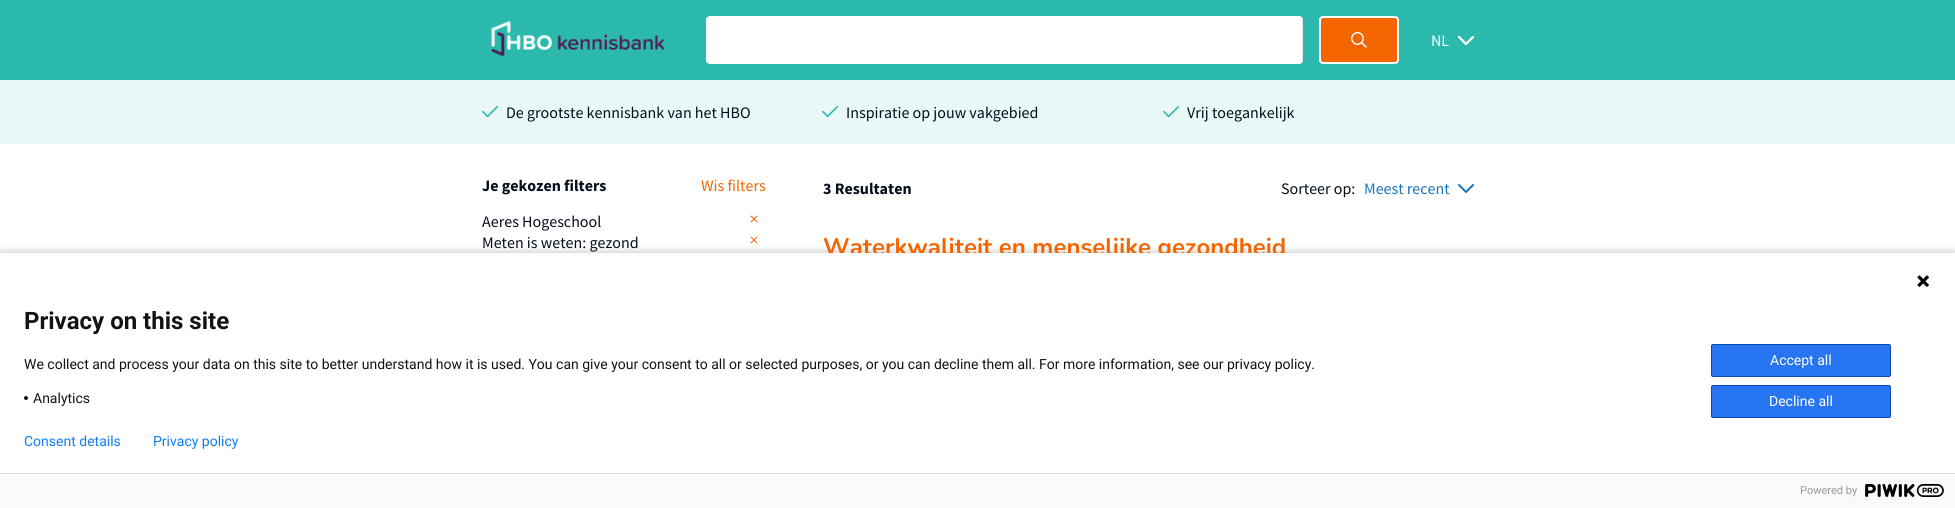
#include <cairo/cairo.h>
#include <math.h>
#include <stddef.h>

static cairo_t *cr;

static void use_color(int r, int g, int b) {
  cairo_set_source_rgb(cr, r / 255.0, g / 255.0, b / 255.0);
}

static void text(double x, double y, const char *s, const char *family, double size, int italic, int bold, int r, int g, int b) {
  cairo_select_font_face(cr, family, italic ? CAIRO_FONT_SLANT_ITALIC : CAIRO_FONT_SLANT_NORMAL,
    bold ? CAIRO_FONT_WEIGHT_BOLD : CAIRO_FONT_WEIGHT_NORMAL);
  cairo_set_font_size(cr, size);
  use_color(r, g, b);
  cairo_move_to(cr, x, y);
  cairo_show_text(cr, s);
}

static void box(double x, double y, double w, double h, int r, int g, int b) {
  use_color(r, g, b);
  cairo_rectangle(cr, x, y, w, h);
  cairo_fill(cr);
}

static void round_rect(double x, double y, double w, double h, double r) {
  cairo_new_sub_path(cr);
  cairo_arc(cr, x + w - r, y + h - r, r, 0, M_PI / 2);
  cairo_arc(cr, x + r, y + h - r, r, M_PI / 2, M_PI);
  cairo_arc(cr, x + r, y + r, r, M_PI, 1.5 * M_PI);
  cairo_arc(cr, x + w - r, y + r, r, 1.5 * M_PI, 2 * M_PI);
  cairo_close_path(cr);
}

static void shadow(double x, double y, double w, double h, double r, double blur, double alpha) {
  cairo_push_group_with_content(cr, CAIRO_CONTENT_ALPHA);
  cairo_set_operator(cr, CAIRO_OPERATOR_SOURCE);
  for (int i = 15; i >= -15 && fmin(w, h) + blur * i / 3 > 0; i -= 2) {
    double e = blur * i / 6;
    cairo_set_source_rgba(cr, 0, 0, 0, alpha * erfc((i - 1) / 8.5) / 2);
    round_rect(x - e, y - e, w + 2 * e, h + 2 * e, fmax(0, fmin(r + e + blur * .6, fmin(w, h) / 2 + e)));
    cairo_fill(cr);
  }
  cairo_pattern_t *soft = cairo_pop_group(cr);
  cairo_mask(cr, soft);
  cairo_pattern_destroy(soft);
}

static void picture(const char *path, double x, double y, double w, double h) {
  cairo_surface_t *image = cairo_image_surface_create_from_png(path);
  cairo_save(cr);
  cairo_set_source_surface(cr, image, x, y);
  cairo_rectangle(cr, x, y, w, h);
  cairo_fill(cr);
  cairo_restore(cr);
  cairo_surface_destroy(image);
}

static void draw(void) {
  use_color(255, 255, 255);
  cairo_paint(cr);
  box(0, 0, 1955, 80, 43, 185, 173);
  picture("img_01.png", 490, 20, 175, 37);
  use_color(255, 255, 255);
  round_rect(706, 16, 597, 48, 4);
  cairo_fill(cr);
  cairo_save(cr);
  round_rect(706, 16, 597, 48, 4);
  cairo_clip(cr);
  box(1302, 16, 1, 48, 230, 230, 232);
  cairo_restore(cr);
  use_color(244, 101, 0);
  round_rect(1320, 17, 78, 46, 3);
  cairo_fill_preserve(cr);
  use_color(255, 255, 255);
  cairo_stroke(cr);
  picture("img_02.png", 1351, 32, 16, 16);
  picture("img_03.png", 1458, 36, 16, 9);
  picture("img_04.png", 1458, 36, 16, 9);
  box(0, 80, 1955, 64, 233, 248, 246);
  picture("img_05.png", 482, 106, 16, 12);
  picture("img_05.png", 822, 106, 16, 12);
  picture("img_05.png", 1163, 106, 16, 12);
  picture("img_06.png", 750, 215, 8, 8);
  picture("img_06.png", 750, 236, 8, 8);
  picture("img_07.png", 1458, 184, 16, 9);
  use_color(0, 0, 0);
  shadow(-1, 250, 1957, 257, 0, 2.5, 0.14);
  box(0, 474, 1955, 34, 250, 250, 250);
  box(0, 473, 1955, 1, 221, 221, 221);
  picture("img_09.png", 1865, 484, 79, 13);
  text(1431, 46, "NL", "Source Sans Pro", 16, 0, 0, 255, 255, 255);
  text(506, 118, "De grootste kennisbank van het HBO", "Source Sans Pro", 16, 0, 0, 5, 14, 29);
  text(846, 118, "Inspiratie op jouw vakgebied", "Source Sans Pro", 16, 0, 0, 5, 14, 29);
  text(1187, 118, "Vrij toegankelijk", "Source Sans Pro", 16, 0, 0, 5, 14, 29);
  text(482, 191, "Je gekozen filters", "Source Sans Pro", 16, 0, 1, 5, 14, 29);
  text(701, 191, "Wis filters", "Source Sans Pro", 16, 0, 0, 244, 101, 0);
  text(482, 227, "Aeres Hogeschool", "Source Sans Pro", 16, 0, 0, 5, 14, 29);
  text(482, 248, "Meten is weten: gezond", "Source Sans Pro", 16, 0, 0, 5, 14, 29);
  text(823, 194, "3 Resultaten", "Source Sans Pro", 16, 0, 1, 5, 14, 29);
  text(1281, 194, "Sorteer op:", "Source Sans Pro", 16, 0, 0, 5, 14, 29);
  text(1364, 194, "Meest recent", "Source Sans Pro", 16, 0, 0, 27, 117, 188);
  text(823, 255, "Waterkwaliteit en menselijke gezondheid", "Nunito ExtraLight", 24, 0, 0, 244, 101, 0);
  box(0, 253, 1955, 220, 255, 255, 255);
  picture("img_08.png", 1917, 275, 13, 13);
  text(24, 329, "Privacy on this site", "Roboto", 24, 0, 1, 19, 19, 19);
  text(24, 369, "We collect and process your data on this site to better understand how it is used. You can give your consent to all or selected purposes, or you can decline them all. For more information, see our privacy policy.", "Roboto", 14, 0, 0, 19, 19, 19);
  cairo_new_path(cr);
  cairo_arc(cr, 26, 398, 2, 0, 2 * M_PI);
  cairo_fill(cr);
  text(33, 403, "Analytics", "Roboto", 14, 0, 0, 19, 19, 19);
  use_color(39, 117, 242);
  round_rect(1711.5, 344.5, 179, 32, 1.5);
  cairo_fill_preserve(cr);
  use_color(11, 75, 179);
  cairo_set_line_width(cr, 1);
  cairo_stroke(cr);
  text(1770, 365, "Accept all", "Roboto", 14, 0, 0, 255, 255, 255);
  use_color(39, 117, 242);
  round_rect(1711.5, 385.5, 179, 32, 1.5);
  cairo_fill_preserve(cr);
  use_color(11, 75, 179);
  cairo_stroke(cr);
  text(1769, 406, "Decline all", "Roboto", 14, 0, 0, 255, 255, 255);
  text(24, 446, "Consent details", "Roboto", 14, 0, 0, 16, 126, 241);
  text(153, 446, "Privacy policy", "Roboto", 14, 0, 0, 16, 126, 241);
  text(1800, 494, "Powered by", "Roboto", 11, 0, 0, 153, 153, 153);
}

int main(void) {
  cairo_surface_t *surface = cairo_image_surface_create(CAIRO_FORMAT_RGB24, 1955, 508);
  cr = cairo_create(surface);
  cairo_font_options_t *options = cairo_font_options_create();
  cairo_font_options_set_hint_metrics(options, CAIRO_HINT_METRICS_OFF);
  cairo_font_options_set_hint_style(options, CAIRO_HINT_STYLE_NONE);
  cairo_set_font_options(cr, options);
  cairo_set_miter_limit(cr, 4);
  draw();
  cairo_surface_write_to_png(surface, "out.png");
  cairo_font_options_destroy(options);
  cairo_destroy(cr);
  cairo_surface_destroy(surface);
  return 0;
}
